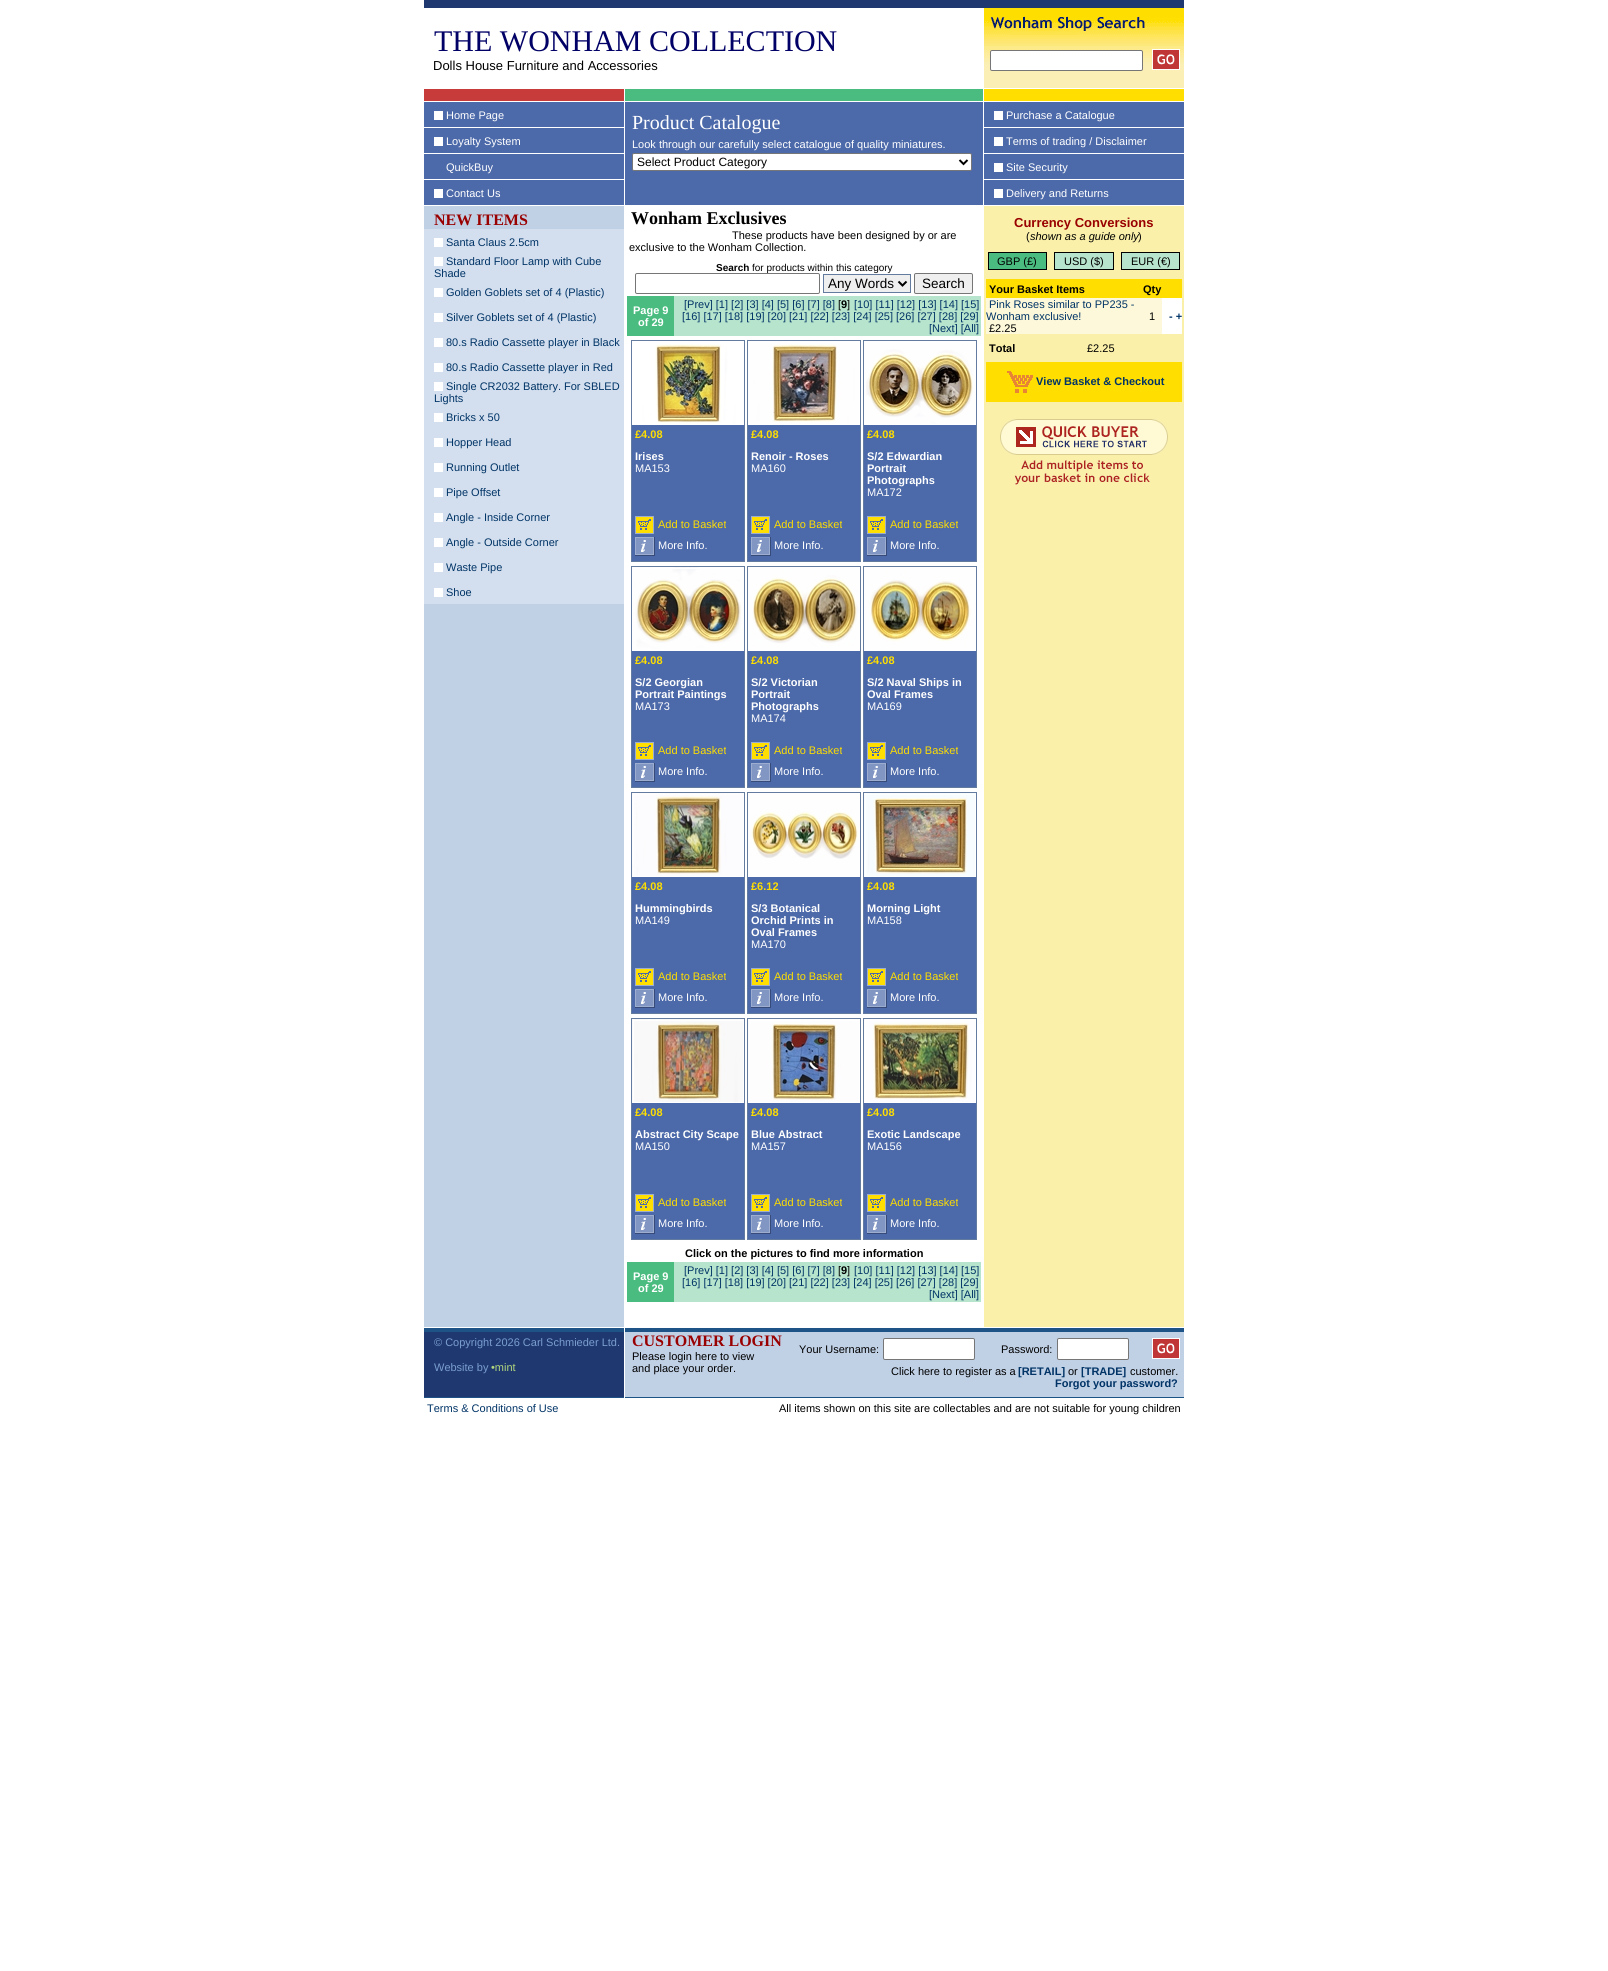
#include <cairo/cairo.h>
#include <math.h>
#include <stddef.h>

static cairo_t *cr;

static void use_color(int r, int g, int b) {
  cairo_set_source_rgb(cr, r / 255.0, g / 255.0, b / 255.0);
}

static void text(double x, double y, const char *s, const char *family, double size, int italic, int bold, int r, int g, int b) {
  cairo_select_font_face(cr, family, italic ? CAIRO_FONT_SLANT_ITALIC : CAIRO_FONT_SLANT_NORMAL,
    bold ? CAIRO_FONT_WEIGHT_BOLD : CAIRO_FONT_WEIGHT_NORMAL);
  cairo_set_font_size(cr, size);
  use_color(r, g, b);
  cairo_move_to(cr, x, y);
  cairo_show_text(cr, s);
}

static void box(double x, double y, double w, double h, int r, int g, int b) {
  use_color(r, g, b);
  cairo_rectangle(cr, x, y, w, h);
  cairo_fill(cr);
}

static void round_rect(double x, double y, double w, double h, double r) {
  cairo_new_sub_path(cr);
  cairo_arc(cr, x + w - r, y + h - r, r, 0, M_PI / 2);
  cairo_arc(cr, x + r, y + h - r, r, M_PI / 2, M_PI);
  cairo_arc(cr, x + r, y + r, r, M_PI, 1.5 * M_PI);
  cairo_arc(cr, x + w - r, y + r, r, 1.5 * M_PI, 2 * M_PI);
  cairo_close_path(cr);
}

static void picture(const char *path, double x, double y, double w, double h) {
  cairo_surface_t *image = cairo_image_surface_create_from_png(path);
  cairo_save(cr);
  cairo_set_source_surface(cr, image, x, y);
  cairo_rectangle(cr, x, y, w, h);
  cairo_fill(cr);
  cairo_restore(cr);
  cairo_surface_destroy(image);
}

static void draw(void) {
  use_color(255, 255, 255);
  cairo_paint(cr);
  box(424, 0, 760, 8, 31, 56, 112);
  picture("img_01.png", 984, 8, 200, 80);
  use_color(255, 255, 255);
  round_rect(990.5, 50.5, 152, 20, 1.5);
  cairo_fill_preserve(cr);
  use_color(118, 118, 118);
  cairo_set_line_width(cr, 1);
  cairo_stroke(cr);
  picture("img_02.png", 1152, 49, 28, 21);
  box(424, 89, 200, 12, 199, 59, 59);
  box(625, 89, 358, 12, 74, 188, 128);
  box(984, 89, 200, 12, 255, 222, 0);
  box(424, 102, 200, 103, 76, 105, 169);
  box(434, 111, 9, 9, 255, 255, 255);
  box(424, 127, 200, 1, 255, 255, 255);
  box(434, 137, 9, 9, 255, 255, 255);
  box(424, 153, 200, 1, 255, 255, 255);
  box(424, 179, 200, 1, 255, 255, 255);
  box(434, 189, 9, 9, 255, 255, 255);
  box(625, 102, 358, 103, 76, 105, 169);
  use_color(255, 255, 255);
  round_rect(632.5, 153.5, 339, 17, 1.5);
  cairo_fill_preserve(cr);
  use_color(118, 118, 118);
  cairo_stroke(cr);
  cairo_new_path(cr);
  cairo_move_to(cr, 959.5, 160);
  cairo_line_to(cr, 963.5, 164);
  cairo_line_to(cr, 967.5, 160);
  use_color(0, 0, 0);
  cairo_set_line_width(cr, 2);
  cairo_stroke(cr);
  box(984, 102, 200, 103, 76, 105, 169);
  box(994, 111, 9, 9, 255, 255, 255);
  box(984, 127, 200, 1, 255, 255, 255);
  box(994, 137, 9, 9, 255, 255, 255);
  box(984, 153, 200, 1, 255, 255, 255);
  box(994, 163, 9, 9, 255, 255, 255);
  box(984, 179, 200, 1, 255, 255, 255);
  box(994, 189, 9, 9, 255, 255, 255);
  box(424, 206, 200, 1121, 192, 208, 229);
  box(424, 229, 200, 25, 211, 223, 238);
  box(434, 238, 9, 9, 255, 255, 255);
  box(424, 254, 200, 25, 211, 223, 238);
  box(434, 257, 9, 9, 255, 255, 255);
  box(424, 279, 200, 25, 211, 223, 238);
  box(434, 288, 9, 9, 255, 255, 255);
  box(424, 304, 200, 25, 211, 223, 238);
  box(434, 313, 9, 9, 255, 255, 255);
  box(424, 329, 200, 25, 211, 223, 238);
  box(434, 338, 9, 9, 255, 255, 255);
  box(424, 354, 200, 25, 211, 223, 238);
  box(434, 363, 9, 9, 255, 255, 255);
  box(424, 379, 200, 25, 211, 223, 238);
  box(434, 382, 9, 9, 255, 255, 255);
  box(424, 404, 200, 25, 211, 223, 238);
  box(434, 413, 9, 9, 255, 255, 255);
  box(424, 429, 200, 25, 211, 223, 238);
  box(434, 438, 9, 9, 255, 255, 255);
  box(424, 454, 200, 25, 211, 223, 238);
  box(434, 463, 9, 9, 255, 255, 255);
  box(424, 479, 200, 25, 211, 223, 238);
  box(434, 488, 9, 9, 255, 255, 255);
  box(424, 504, 200, 25, 211, 223, 238);
  box(434, 513, 9, 9, 255, 255, 255);
  box(424, 529, 200, 25, 211, 223, 238);
  box(434, 538, 9, 9, 255, 255, 255);
  box(424, 554, 200, 25, 211, 223, 238);
  box(434, 563, 9, 9, 255, 255, 255);
  box(424, 579, 200, 25, 211, 223, 238);
  box(434, 588, 9, 9, 255, 255, 255);
  use_color(239, 239, 239);
  cairo_rectangle(cr, 823.5, 274.5, 87, 18);
  cairo_fill_preserve(cr);
  use_color(99, 123, 159);
  cairo_set_line_width(cr, 1);
  cairo_stroke(cr);
  cairo_new_path(cr);
  cairo_move_to(cr, 898.5, 281.5);
  cairo_line_to(cr, 902.5, 285.5);
  cairo_line_to(cr, 906.5, 281.5);
  use_color(0, 0, 0);
  cairo_set_line_width(cr, 2);
  cairo_stroke(cr);
  use_color(239, 239, 239);
  round_rect(914.5, 273.5, 58, 20, 1.5);
  cairo_fill_preserve(cr);
  use_color(118, 118, 118);
  cairo_set_line_width(cr, 1);
  cairo_stroke(cr);
  box(627, 296, 47, 40, 74, 188, 128);
  box(674, 296, 307, 40, 183, 228, 204);
  box(632, 425, 112, 136, 76, 105, 169);
  cairo_rectangle(cr, 631.5, 340.5, 113, 221);
  use_color(99, 123, 159);
  cairo_stroke(cr);
  picture("img_03.png", 632, 341, 112, 84);
  picture("img_04.png", 635, 516, 19, 18);
  picture("img_05.png", 635, 537, 20, 19);
  box(748, 425, 112, 136, 76, 105, 169);
  cairo_rectangle(cr, 747.5, 340.5, 113, 221);
  use_color(99, 123, 159);
  cairo_stroke(cr);
  picture("img_06.png", 748, 341, 112, 84);
  picture("img_04.png", 751, 516, 19, 18);
  picture("img_05.png", 751, 537, 20, 19);
  box(864, 425, 112, 136, 76, 105, 169);
  cairo_rectangle(cr, 863.5, 340.5, 113, 221);
  use_color(99, 123, 159);
  cairo_stroke(cr);
  picture("img_07.png", 864, 341, 112, 84);
  picture("img_04.png", 867, 516, 19, 18);
  picture("img_05.png", 867, 537, 20, 19);
  box(632, 651, 112, 136, 76, 105, 169);
  cairo_rectangle(cr, 631.5, 566.5, 113, 221);
  use_color(99, 123, 159);
  cairo_stroke(cr);
  picture("img_08.png", 632, 567, 112, 84);
  picture("img_04.png", 635, 742, 19, 18);
  picture("img_05.png", 635, 763, 20, 19);
  box(748, 651, 112, 136, 76, 105, 169);
  cairo_rectangle(cr, 747.5, 566.5, 113, 221);
  use_color(99, 123, 159);
  cairo_stroke(cr);
  picture("img_09.png", 748, 567, 112, 84);
  picture("img_04.png", 751, 742, 19, 18);
  picture("img_05.png", 751, 763, 20, 19);
  box(864, 651, 112, 136, 76, 105, 169);
  cairo_rectangle(cr, 863.5, 566.5, 113, 221);
  use_color(99, 123, 159);
  cairo_stroke(cr);
  picture("img_10.png", 864, 567, 112, 84);
  picture("img_04.png", 867, 742, 19, 18);
  picture("img_05.png", 867, 763, 20, 19);
  box(632, 877, 112, 136, 76, 105, 169);
  cairo_rectangle(cr, 631.5, 792.5, 113, 221);
  use_color(99, 123, 159);
  cairo_stroke(cr);
  picture("img_11.png", 632, 793, 112, 84);
  picture("img_04.png", 635, 968, 19, 18);
  picture("img_05.png", 635, 989, 20, 19);
  box(748, 877, 112, 136, 76, 105, 169);
  cairo_rectangle(cr, 747.5, 792.5, 113, 221);
  use_color(99, 123, 159);
  cairo_stroke(cr);
  picture("img_12.png", 748, 793, 112, 84);
  picture("img_04.png", 751, 968, 19, 18);
  picture("img_05.png", 751, 989, 20, 19);
  box(864, 877, 112, 136, 76, 105, 169);
  cairo_rectangle(cr, 863.5, 792.5, 113, 221);
  use_color(99, 123, 159);
  cairo_stroke(cr);
  picture("img_13.png", 864, 793, 112, 84);
  picture("img_04.png", 867, 968, 19, 18);
  picture("img_05.png", 867, 989, 20, 19);
  box(632, 1103, 112, 136, 76, 105, 169);
  cairo_rectangle(cr, 631.5, 1018.5, 113, 221);
  use_color(99, 123, 159);
  cairo_stroke(cr);
  picture("img_14.png", 632, 1019, 112, 84);
  picture("img_04.png", 635, 1194, 19, 18);
  picture("img_05.png", 635, 1215, 20, 19);
  box(748, 1103, 112, 136, 76, 105, 169);
  cairo_rectangle(cr, 747.5, 1018.5, 113, 221);
  use_color(99, 123, 159);
  cairo_stroke(cr);
  picture("img_15.png", 748, 1019, 112, 84);
  picture("img_04.png", 751, 1194, 19, 18);
  picture("img_05.png", 751, 1215, 20, 19);
  box(864, 1103, 112, 136, 76, 105, 169);
  cairo_rectangle(cr, 863.5, 1018.5, 113, 221);
  use_color(99, 123, 159);
  cairo_stroke(cr);
  picture("img_16.png", 864, 1019, 112, 84);
  picture("img_04.png", 867, 1194, 19, 18);
  picture("img_05.png", 867, 1215, 20, 19);
  box(627, 1262, 47, 40, 74, 188, 128);
  box(674, 1262, 307, 40, 183, 228, 204);
  box(984, 206, 200, 1121, 250, 240, 169);
  box(988, 252, 59, 18, 0, 0, 0);
  box(989, 253, 57, 16, 74, 188, 128);
  box(1054, 252, 60, 18, 0, 0, 0);
  box(1055, 253, 58, 16, 183, 228, 204);
  box(1121, 252, 59, 18, 0, 0, 0);
  box(1122, 253, 57, 16, 183, 228, 204);
  box(986, 279, 196, 19, 255, 222, 0);
  box(986, 298, 176, 36, 252, 248, 217);
  box(1162, 298, 20, 36, 255, 255, 255);
  box(986, 362, 196, 40, 255, 222, 0);
  picture("img_17.png", 1007, 371, 26, 22);
  picture("img_18.png", 1000, 419, 168, 66);
  box(424, 1328, 200, 4, 30, 83, 136);
  box(625, 1328, 559, 4, 30, 83, 136);
  box(424, 1332, 200, 65, 31, 56, 112);
  box(625, 1332, 559, 65, 192, 208, 229);
  use_color(255, 255, 255);
  round_rect(883.5, 1338.5, 91, 21, 1.5);
  cairo_fill_preserve(cr);
  use_color(118, 118, 118);
  cairo_stroke(cr);
  use_color(255, 255, 255);
  round_rect(1057.5, 1338.5, 71, 21, 1.5);
  cairo_fill_preserve(cr);
  use_color(118, 118, 118);
  cairo_stroke(cr);
  picture("img_02.png", 1152, 1338, 28, 21);
  box(424, 1397, 200, 1, 30, 83, 136);
  box(625, 1397, 559, 1, 30, 83, 136);
  text(434, 51, "THE WONHAM COLLECTION", "Liberation Serif", 30, 0, 0, 0, 0, 102);
  text(433, 70, "Dolls House Furniture and Accessories", "Liberation Sans", 13, 0, 0, 0, 0, 0);
  text(446, 119, "Home Page", "Liberation Sans", 11, 0, 0, 255, 255, 255);
  text(446, 145, "Loyalty System", "Liberation Sans", 11, 0, 0, 255, 255, 255);
  text(446, 171, "QuickBuy", "Liberation Sans", 11, 0, 0, 255, 255, 255);
  text(446, 197, "Contact Us", "Liberation Sans", 11, 0, 0, 255, 255, 255);
  text(632, 129, "Product Catalogue", "Liberation Serif", 20, 0, 0, 255, 255, 255);
  text(632, 148, "Look through our carefully select catalogue of quality miniatures.", "Liberation Sans", 11, 0, 0, 255, 255, 255);
  text(637, 166, "Select Product Category", "Liberation Sans", 12, 0, 0, 0, 0, 0);
  text(1006, 119, "Purchase a Catalogue", "Liberation Sans", 11, 0, 0, 255, 255, 255);
  text(1006, 145, "Terms of trading / Disclaimer", "Liberation Sans", 11, 0, 0, 255, 255, 255);
  text(1006, 171, "Site Security", "Liberation Sans", 11, 0, 0, 255, 255, 255);
  text(1006, 197, "Delivery and Returns", "Liberation Sans", 11, 0, 0, 255, 255, 255);
  text(434, 225, "NEW ITEMS", "Liberation Serif", 16, 0, 1, 153, 0, 0);
  text(446, 246, "Santa Claus 2.5cm", "Liberation Sans", 11, 0, 0, 0, 51, 102);
  text(446, 265, "Standard Floor Lamp with Cube", "Liberation Sans", 11, 0, 0, 0, 51, 102);
  text(434, 277, "Shade", "Liberation Sans", 11, 0, 0, 0, 51, 102);
  text(446, 296, "Golden Goblets set of 4 (Plastic)", "Liberation Sans", 11, 0, 0, 0, 51, 102);
  text(446, 321, "Silver Goblets set of 4 (Plastic)", "Liberation Sans", 11, 0, 0, 0, 51, 102);
  text(446, 346, "80.s Radio Cassette player in Black", "Liberation Sans", 11, 0, 0, 0, 51, 102);
  text(446, 371, "80.s Radio Cassette player in Red", "Liberation Sans", 11, 0, 0, 0, 51, 102);
  text(446, 390, "Single CR2032 Battery. For SBLED", "Liberation Sans", 11, 0, 0, 0, 51, 102);
  text(434, 402, "Lights", "Liberation Sans", 11, 0, 0, 0, 51, 102);
  text(446, 421, "Bricks x 50", "Liberation Sans", 11, 0, 0, 0, 51, 102);
  text(446, 446, "Hopper Head", "Liberation Sans", 11, 0, 0, 0, 51, 102);
  text(446, 471, "Running Outlet", "Liberation Sans", 11, 0, 0, 0, 51, 102);
  text(446, 496, "Pipe Offset", "Liberation Sans", 11, 0, 0, 0, 51, 102);
  text(446, 521, "Angle - Inside Corner", "Liberation Sans", 11, 0, 0, 0, 51, 102);
  text(446, 546, "Angle - Outside Corner", "Liberation Sans", 11, 0, 0, 0, 51, 102);
  text(446, 571, "Waste Pipe", "Liberation Sans", 11, 0, 0, 0, 51, 102);
  text(446, 596, "Shoe", "Liberation Sans", 11, 0, 0, 0, 51, 102);
  text(631, 224, "Wonham Exclusives", "Liberation Serif", 18, 0, 1, 0, 0, 0);
  text(732, 239, "These products have been designed by or are", "Liberation Sans", 11, 0, 0, 0, 0, 0);
  text(629, 251, "exclusive to the Wonham Collection.", "Liberation Sans", 11, 0, 0, 0, 0, 0);
  text(716, 271, "Search", "Liberation Sans", 10, 0, 1, 0, 0, 0);
  text(752, 271, "for products within this category", "Liberation Sans", 10, 0, 0, 0, 0, 0);
  use_color(255, 255, 255);
  round_rect(635.5, 273.5, 184, 20, 1.5);
  cairo_fill_preserve(cr);
  use_color(118, 118, 118);
  cairo_stroke(cr);
  text(828, 288, "Any Words", "Liberation Sans", 13.5, 0, 0, 0, 0, 0);
  text(922, 288, "Search", "Liberation Sans", 13.5, 0, 0, 0, 0, 0);
  text(633, 314, "Page 9", "Liberation Sans", 11, 0, 1, 255, 255, 255);
  text(638, 326, "of 29", "Liberation Sans", 11, 0, 1, 255, 255, 255);
  text(684, 308, "[Prev] [1] [2] [3] [4] [5] [6] [7] [8]", "Liberation Sans", 11, 0, 0, 0, 51, 102);
  text(838, 308, "[", "Liberation Sans", 11, 0, 0, 0, 0, 0);
  text(841, 308, "9", "Liberation Sans", 11, 0, 1, 0, 0, 0);
  text(847, 308, "]", "Liberation Sans", 11, 0, 0, 0, 0, 0);
  text(854, 308, "[10] [11] [12] [13] [14] [15]", "Liberation Sans", 11, 0, 0, 0, 51, 102);
  text(682, 320, "[16] [17] [18] [19] [20] [21] [22] [23] [24] [25] [26] [27] [28] [29]", "Liberation Sans", 11, 0, 0, 0, 51, 102);
  text(929, 332, "[Next] [All]", "Liberation Sans", 11, 0, 0, 0, 51, 102);
  text(635, 438, "£4.08", "Liberation Sans", 11, 0, 1, 255, 222, 0);
  text(635, 460, "Irises", "Liberation Sans", 11, 0, 1, 255, 255, 255);
  text(635, 472, "MA153", "Liberation Sans", 11, 0, 0, 255, 255, 255);
  text(658, 528, "Add to Basket", "Liberation Sans", 11, 0, 0, 255, 222, 0);
  text(658, 549, "More Info.", "Liberation Sans", 11, 0, 0, 255, 255, 255);
  text(751, 438, "£4.08", "Liberation Sans", 11, 0, 1, 255, 222, 0);
  text(751, 460, "Renoir - Roses", "Liberation Sans", 11, 0, 1, 255, 255, 255);
  text(751, 472, "MA160", "Liberation Sans", 11, 0, 0, 255, 255, 255);
  text(774, 528, "Add to Basket", "Liberation Sans", 11, 0, 0, 255, 222, 0);
  text(774, 549, "More Info.", "Liberation Sans", 11, 0, 0, 255, 255, 255);
  text(867, 438, "£4.08", "Liberation Sans", 11, 0, 1, 255, 222, 0);
  text(867, 460, "S/2 Edwardian", "Liberation Sans", 11, 0, 1, 255, 255, 255);
  text(867, 472, "Portrait", "Liberation Sans", 11, 0, 1, 255, 255, 255);
  text(867, 484, "Photographs", "Liberation Sans", 11, 0, 1, 255, 255, 255);
  text(867, 496, "MA172", "Liberation Sans", 11, 0, 0, 255, 255, 255);
  text(890, 528, "Add to Basket", "Liberation Sans", 11, 0, 0, 255, 222, 0);
  text(890, 549, "More Info.", "Liberation Sans", 11, 0, 0, 255, 255, 255);
  text(635, 664, "£4.08", "Liberation Sans", 11, 0, 1, 255, 222, 0);
  text(635, 686, "S/2 Georgian", "Liberation Sans", 11, 0, 1, 255, 255, 255);
  text(635, 698, "Portrait Paintings", "Liberation Sans", 11, 0, 1, 255, 255, 255);
  text(635, 710, "MA173", "Liberation Sans", 11, 0, 0, 255, 255, 255);
  text(658, 754, "Add to Basket", "Liberation Sans", 11, 0, 0, 255, 222, 0);
  text(658, 775, "More Info.", "Liberation Sans", 11, 0, 0, 255, 255, 255);
  text(751, 664, "£4.08", "Liberation Sans", 11, 0, 1, 255, 222, 0);
  text(751, 686, "S/2 Victorian", "Liberation Sans", 11, 0, 1, 255, 255, 255);
  text(751, 698, "Portrait", "Liberation Sans", 11, 0, 1, 255, 255, 255);
  text(751, 710, "Photographs", "Liberation Sans", 11, 0, 1, 255, 255, 255);
  text(751, 722, "MA174", "Liberation Sans", 11, 0, 0, 255, 255, 255);
  text(774, 754, "Add to Basket", "Liberation Sans", 11, 0, 0, 255, 222, 0);
  text(774, 775, "More Info.", "Liberation Sans", 11, 0, 0, 255, 255, 255);
  text(867, 664, "£4.08", "Liberation Sans", 11, 0, 1, 255, 222, 0);
  text(867, 686, "S/2 Naval Ships in", "Liberation Sans", 11, 0, 1, 255, 255, 255);
  text(867, 698, "Oval Frames", "Liberation Sans", 11, 0, 1, 255, 255, 255);
  text(867, 710, "MA169", "Liberation Sans", 11, 0, 0, 255, 255, 255);
  text(890, 754, "Add to Basket", "Liberation Sans", 11, 0, 0, 255, 222, 0);
  text(890, 775, "More Info.", "Liberation Sans", 11, 0, 0, 255, 255, 255);
  text(635, 890, "£4.08", "Liberation Sans", 11, 0, 1, 255, 222, 0);
  text(635, 912, "Hummingbirds", "Liberation Sans", 11, 0, 1, 255, 255, 255);
  text(635, 924, "MA149", "Liberation Sans", 11, 0, 0, 255, 255, 255);
  text(658, 980, "Add to Basket", "Liberation Sans", 11, 0, 0, 255, 222, 0);
  text(658, 1001, "More Info.", "Liberation Sans", 11, 0, 0, 255, 255, 255);
  text(751, 890, "£6.12", "Liberation Sans", 11, 0, 1, 255, 222, 0);
  text(751, 912, "S/3 Botanical", "Liberation Sans", 11, 0, 1, 255, 255, 255);
  text(751, 924, "Orchid Prints in", "Liberation Sans", 11, 0, 1, 255, 255, 255);
  text(751, 936, "Oval Frames", "Liberation Sans", 11, 0, 1, 255, 255, 255);
  text(751, 948, "MA170", "Liberation Sans", 11, 0, 0, 255, 255, 255);
  text(774, 980, "Add to Basket", "Liberation Sans", 11, 0, 0, 255, 222, 0);
  text(774, 1001, "More Info.", "Liberation Sans", 11, 0, 0, 255, 255, 255);
  text(867, 890, "£4.08", "Liberation Sans", 11, 0, 1, 255, 222, 0);
  text(867, 912, "Morning Light", "Liberation Sans", 11, 0, 1, 255, 255, 255);
  text(867, 924, "MA158", "Liberation Sans", 11, 0, 0, 255, 255, 255);
  text(890, 980, "Add to Basket", "Liberation Sans", 11, 0, 0, 255, 222, 0);
  text(890, 1001, "More Info.", "Liberation Sans", 11, 0, 0, 255, 255, 255);
  text(635, 1116, "£4.08", "Liberation Sans", 11, 0, 1, 255, 222, 0);
  text(635, 1138, "Abstract City Scape", "Liberation Sans", 11, 0, 1, 255, 255, 255);
  text(635, 1150, "MA150", "Liberation Sans", 11, 0, 0, 255, 255, 255);
  text(658, 1206, "Add to Basket", "Liberation Sans", 11, 0, 0, 255, 222, 0);
  text(658, 1227, "More Info.", "Liberation Sans", 11, 0, 0, 255, 255, 255);
  text(751, 1116, "£4.08", "Liberation Sans", 11, 0, 1, 255, 222, 0);
  text(751, 1138, "Blue Abstract", "Liberation Sans", 11, 0, 1, 255, 255, 255);
  text(751, 1150, "MA157", "Liberation Sans", 11, 0, 0, 255, 255, 255);
  text(774, 1206, "Add to Basket", "Liberation Sans", 11, 0, 0, 255, 222, 0);
  text(774, 1227, "More Info.", "Liberation Sans", 11, 0, 0, 255, 255, 255);
  text(867, 1116, "£4.08", "Liberation Sans", 11, 0, 1, 255, 222, 0);
  text(867, 1138, "Exotic Landscape", "Liberation Sans", 11, 0, 1, 255, 255, 255);
  text(867, 1150, "MA156", "Liberation Sans", 11, 0, 0, 255, 255, 255);
  text(890, 1206, "Add to Basket", "Liberation Sans", 11, 0, 0, 255, 222, 0);
  text(890, 1227, "More Info.", "Liberation Sans", 11, 0, 0, 255, 255, 255);
  text(685, 1257, "Click on the pictures to find more information", "Liberation Sans", 11, 0, 1, 0, 0, 0);
  text(633, 1280, "Page 9", "Liberation Sans", 11, 0, 1, 255, 255, 255);
  text(638, 1292, "of 29", "Liberation Sans", 11, 0, 1, 255, 255, 255);
  text(684, 1274, "[Prev] [1] [2] [3] [4] [5] [6] [7] [8]", "Liberation Sans", 11, 0, 0, 0, 51, 102);
  text(838, 1274, "[", "Liberation Sans", 11, 0, 0, 0, 0, 0);
  text(841, 1274, "9", "Liberation Sans", 11, 0, 1, 0, 0, 0);
  text(847, 1274, "]", "Liberation Sans", 11, 0, 0, 0, 0, 0);
  text(854, 1274, "[10] [11] [12] [13] [14] [15]", "Liberation Sans", 11, 0, 0, 0, 51, 102);
  text(682, 1286, "[16] [17] [18] [19] [20] [21] [22] [23] [24] [25] [26] [27] [28] [29]", "Liberation Sans", 11, 0, 0, 0, 51, 102);
  text(929, 1298, "[Next] [All]", "Liberation Sans", 11, 0, 0, 0, 51, 102);
  text(1014, 227, "Currency Conversions", "Liberation Sans", 13, 0, 1, 153, 0, 0);
  text(1026, 240, "(", "Liberation Sans", 11, 0, 0, 0, 0, 0);
  text(1030, 240, "shown as a guide only", "Liberation Sans", 11, 1, 0, 0, 0, 0);
  text(1138, 240, ")", "Liberation Sans", 11, 0, 0, 0, 0, 0);
  text(997, 265, "GBP (£)", "Liberation Sans", 11, 0, 0, 0, 0, 0);
  text(1064, 265, "USD ($)", "Liberation Sans", 11, 0, 0, 0, 0, 0);
  text(1131, 265, "EUR (€)", "Liberation Sans", 11, 0, 0, 0, 0, 0);
  text(989, 293, "Your Basket Items", "Liberation Sans", 11, 0, 1, 0, 0, 0);
  text(1143, 293, "Qty", "Liberation Sans", 11, 0, 1, 0, 0, 0);
  text(989, 308, "Pink Roses similar to PP235 -", "Liberation Sans", 11, 0, 0, 0, 51, 102);
  text(986, 320, "Wonham exclusive!", "Liberation Sans", 11, 0, 0, 0, 51, 102);
  text(989, 332, "£2.25", "Liberation Sans", 11, 0, 0, 0, 0, 0);
  text(1149, 320, "1", "Liberation Sans", 11, 0, 0, 0, 0, 0);
  text(1169, 320, "- +", "Liberation Sans", 11, 0, 1, 0, 51, 102);
  text(989, 352, "Total", "Liberation Sans", 11, 0, 1, 0, 0, 0);
  text(1087, 352, "£2.25", "Liberation Sans", 11, 0, 0, 0, 0, 0);
  text(1036, 385, "View Basket & Checkout", "Liberation Sans", 11, 0, 1, 0, 51, 102);
  text(434, 1346, "© Copyright 2026 Carl Schmieder Ltd.", "Liberation Sans", 11, 0, 0, 122, 158, 206);
  text(434, 1371, "Website by", "Liberation Sans", 11, 0, 0, 122, 158, 206);
  text(491, 1371, "•mint", "Liberation Sans", 11, 0, 0, 179, 215, 124);
  text(632, 1346, "CUSTOMER LOGIN", "Liberation Serif", 16, 0, 1, 153, 0, 0);
  text(632, 1360, "Please login here to view", "Liberation Sans", 11, 0, 0, 0, 0, 0);
  text(632, 1372, "and place your order.", "Liberation Sans", 11, 0, 0, 0, 0, 0);
  text(799, 1353, "Your Username:", "Liberation Sans", 11, 0, 0, 0, 0, 0);
  text(1001, 1353, "Password:", "Liberation Sans", 11, 0, 0, 0, 0, 0);
  text(891, 1375, "Click here to register as a", "Liberation Sans", 11, 0, 0, 0, 0, 0);
  text(1018, 1375, "[RETAIL]", "Liberation Sans", 11, 0, 1, 0, 51, 102);
  text(1068, 1375, "or", "Liberation Sans", 11, 0, 0, 0, 0, 0);
  text(1081, 1375, "[TRADE]", "Liberation Sans", 11, 0, 1, 0, 51, 102);
  text(1130, 1375, "customer.", "Liberation Sans", 11, 0, 0, 0, 0, 0);
  text(1055, 1387, "Forgot your password?", "Liberation Sans", 11, 0, 1, 0, 51, 102);
  text(427, 1412, "Terms & Conditions of Use", "Liberation Sans", 11, 0, 0, 0, 51, 102);
  text(779, 1412, "All items shown on this site are collectables and are not suitable for young children", "Liberation Sans", 11, 0, 0, 0, 0, 0);
}

int main(void) {
  cairo_surface_t *surface = cairo_image_surface_create(CAIRO_FORMAT_RGB24, 1608, 1971);
  cr = cairo_create(surface);
  cairo_font_options_t *options = cairo_font_options_create();
  cairo_font_options_set_hint_metrics(options, CAIRO_HINT_METRICS_OFF);
  cairo_font_options_set_hint_style(options, CAIRO_HINT_STYLE_NONE);
  cairo_set_font_options(cr, options);
  cairo_set_miter_limit(cr, 4);
  draw();
  cairo_surface_write_to_png(surface, "out.png");
  cairo_font_options_destroy(options);
  cairo_destroy(cr);
  cairo_surface_destroy(surface);
  return 0;
}
